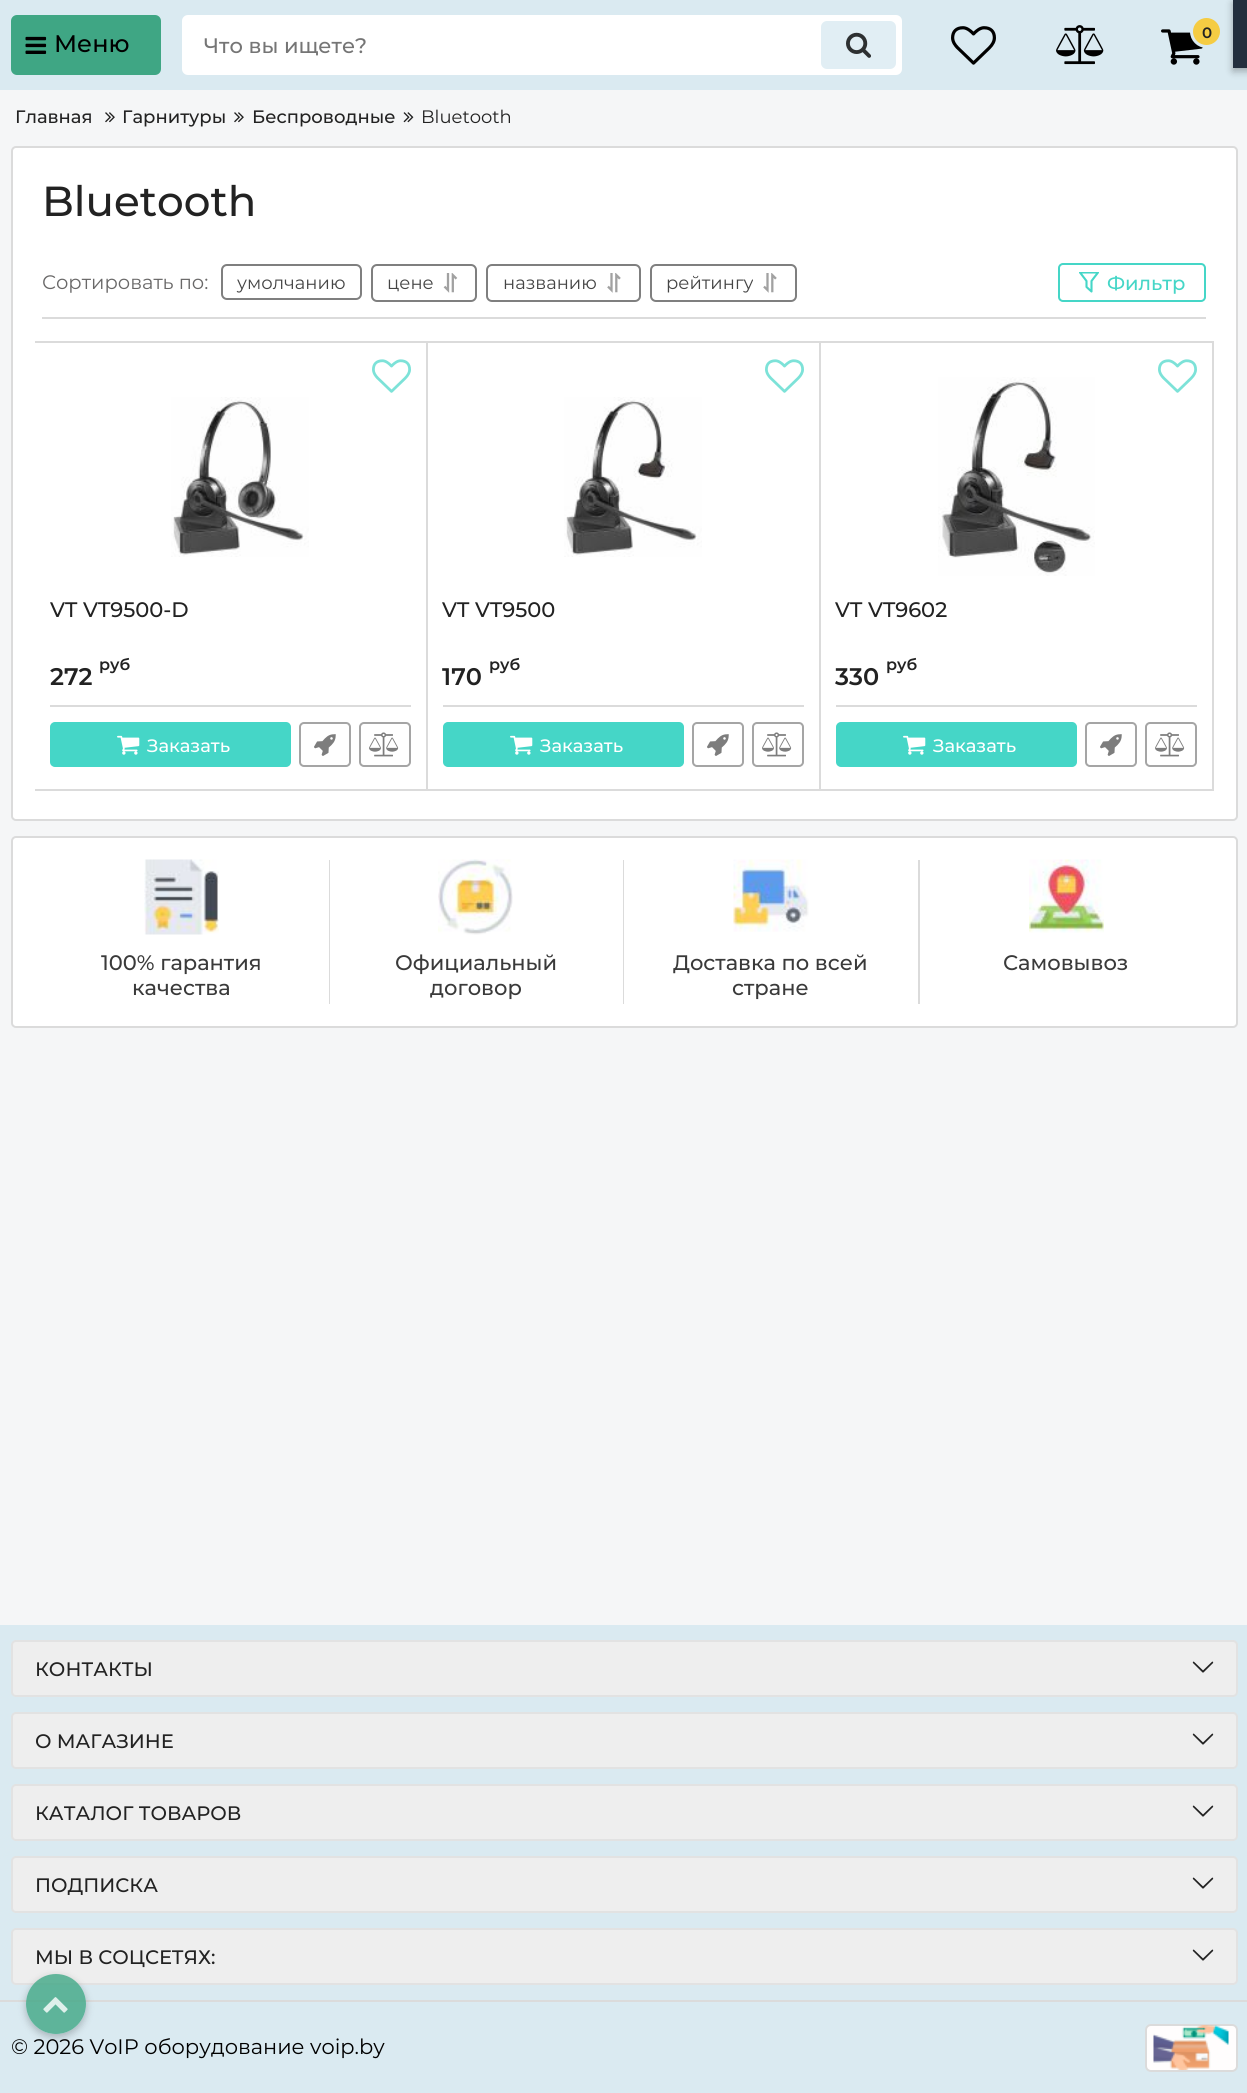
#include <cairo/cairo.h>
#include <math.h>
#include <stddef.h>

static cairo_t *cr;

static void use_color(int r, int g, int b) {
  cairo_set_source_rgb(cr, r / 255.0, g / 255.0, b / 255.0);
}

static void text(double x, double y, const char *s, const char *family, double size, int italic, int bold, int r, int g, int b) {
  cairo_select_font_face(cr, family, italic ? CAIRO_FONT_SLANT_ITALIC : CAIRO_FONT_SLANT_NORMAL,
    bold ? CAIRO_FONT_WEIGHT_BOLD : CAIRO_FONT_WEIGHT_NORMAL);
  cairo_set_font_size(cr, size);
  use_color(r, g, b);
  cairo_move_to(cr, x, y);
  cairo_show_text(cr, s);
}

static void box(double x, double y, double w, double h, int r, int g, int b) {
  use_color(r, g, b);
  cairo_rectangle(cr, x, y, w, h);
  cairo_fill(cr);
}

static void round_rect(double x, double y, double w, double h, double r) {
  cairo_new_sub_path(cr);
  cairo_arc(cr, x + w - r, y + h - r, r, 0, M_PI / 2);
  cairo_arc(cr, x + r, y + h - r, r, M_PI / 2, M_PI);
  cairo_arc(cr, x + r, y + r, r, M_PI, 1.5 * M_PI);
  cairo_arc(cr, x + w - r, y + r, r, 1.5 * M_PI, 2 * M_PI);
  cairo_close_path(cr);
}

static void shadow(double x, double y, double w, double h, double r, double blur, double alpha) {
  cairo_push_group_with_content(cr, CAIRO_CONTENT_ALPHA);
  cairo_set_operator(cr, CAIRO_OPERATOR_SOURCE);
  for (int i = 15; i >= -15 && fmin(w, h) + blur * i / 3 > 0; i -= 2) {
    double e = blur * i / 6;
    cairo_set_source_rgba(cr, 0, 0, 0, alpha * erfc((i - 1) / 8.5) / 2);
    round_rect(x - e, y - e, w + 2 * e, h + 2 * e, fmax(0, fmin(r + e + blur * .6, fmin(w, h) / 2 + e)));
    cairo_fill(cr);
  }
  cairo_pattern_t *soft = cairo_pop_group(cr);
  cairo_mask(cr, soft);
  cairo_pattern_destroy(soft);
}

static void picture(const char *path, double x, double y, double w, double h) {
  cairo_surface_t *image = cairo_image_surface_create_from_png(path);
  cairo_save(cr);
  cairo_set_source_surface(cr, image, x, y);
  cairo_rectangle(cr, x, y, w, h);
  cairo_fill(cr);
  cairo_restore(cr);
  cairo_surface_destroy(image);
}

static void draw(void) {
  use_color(245, 246, 247);
  cairo_paint(cr);
  box(0, 0, 1247, 90, 218, 234, 241);
  picture("img_01.png", 951, 26, 45, 39);
  picture("img_02.png", 1056, 25, 48, 40);
  picture("img_03.png", 1161, 29, 42, 36);
  use_color(245, 204, 67);
  cairo_arc(cr, 1206.5, 31.5, 15, 0, 2 * M_PI);
  cairo_fill_preserve(cr);
  use_color(218, 234, 241);
  cairo_set_line_width(cr, 3);
  cairo_stroke(cr);
  use_color(63, 166, 132);
  round_rect(11, 15, 150, 60, 6);
  cairo_fill(cr);
  picture("img_04.png", 25, 36, 22, 18);
  use_color(255, 255, 255);
  round_rect(182, 15, 720, 60, 6);
  cairo_fill(cr);
  use_color(225, 238, 244);
  round_rect(821, 21, 75, 48, 6);
  cairo_fill(cr);
  picture("img_05.png", 846, 32, 25, 26);
  picture("img_06.png", 105, 112, 10, 11);
  picture("img_06.png", 234, 112, 10, 11);
  picture("img_07.png", 403, 112, 11, 11);
  use_color(0, 0, 0);
  shadow(1233, 3, 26, 68, 0, 4, 0.3);
  box(1233, 0, 14, 68, 35, 47, 62);
  use_color(255, 255, 255);
  round_rect(12, 147, 1225, 673, 4);
  cairo_fill_preserve(cr);
  use_color(219, 219, 219);
  cairo_set_line_width(cr, 2);
  cairo_stroke(cr);
  box(42, 317, 1164, 2, 219, 219, 219);
  round_rect(222, 265, 139, 34, 5);
  use_color(127, 127, 127);
  cairo_stroke(cr);
  round_rect(372, 265, 104, 36, 5);
  cairo_stroke(cr);
  picture("img_08.png", 443, 273, 15, 20);
  round_rect(487, 265, 153, 36, 5);
  cairo_stroke(cr);
  picture("img_09.png", 607, 273, 14, 20);
  round_rect(651, 265, 145, 36, 5);
  cairo_stroke(cr);
  picture("img_09.png", 763, 273, 14, 20);
  round_rect(1059, 264, 146, 37, 4);
  use_color(69, 214, 199);
  cairo_stroke(cr);
  cairo_save(cr);
  cairo_rectangle(cr, 1079, 272, 21, 21);
  cairo_clip(cr);
  cairo_new_path(cr);
  cairo_move_to(cr, 1080, 272.5);
  cairo_line_to(cr, 1098, 272.5);
  cairo_line_to(cr, 1091.5, 281);
  cairo_line_to(cr, 1091.5, 291.5);
  cairo_line_to(cr, 1086.5, 287);
  cairo_line_to(cr, 1086.5, 281);
  cairo_close_path(cr);
  cairo_set_line_width(cr, 2.1);
  cairo_set_line_cap(cr, CAIRO_LINE_CAP_ROUND);
  cairo_set_line_join(cr, CAIRO_LINE_JOIN_ROUND);
  cairo_stroke(cr);
  cairo_restore(cr);
  box(35, 341, 1179, 2, 219, 219, 219);
  box(426, 341, 2, 450, 219, 219, 219);
  box(35, 789, 393, 2, 219, 219, 219);
  picture("img_10.png", 372, 359, 39, 34);
  picture("img_11.png", 171, 397, 138, 160);
  box(50, 705, 361, 2, 219, 219, 219);
  use_color(69, 214, 199);
  round_rect(51, 723, 239, 43, 4);
  cairo_fill_preserve(cr);
  cairo_stroke(cr);
  picture("img_12.png", 117, 735, 23, 20);
  round_rect(300, 723, 50, 43, 4);
  use_color(165, 165, 165);
  cairo_stroke(cr);
  picture("img_13.png", 314, 734, 22, 22);
  round_rect(360, 723, 50, 43, 4);
  cairo_stroke(cr);
  picture("img_14.png", 369, 732, 30, 25);
  box(819, 341, 2, 450, 219, 219, 219);
  box(428, 789, 393, 2, 219, 219, 219);
  picture("img_10.png", 765, 359, 39, 34);
  picture("img_15.png", 564, 397, 138, 160);
  box(443, 705, 361, 2, 219, 219, 219);
  use_color(69, 214, 199);
  round_rect(444, 723, 239, 43, 4);
  cairo_fill_preserve(cr);
  cairo_stroke(cr);
  picture("img_12.png", 510, 735, 23, 20);
  round_rect(693, 723, 50, 43, 4);
  use_color(165, 165, 165);
  cairo_stroke(cr);
  picture("img_13.png", 707, 734, 22, 22);
  round_rect(753, 723, 50, 43, 4);
  cairo_stroke(cr);
  picture("img_14.png", 762, 732, 30, 25);
  box(1212, 341, 2, 450, 219, 219, 219);
  box(821, 789, 393, 2, 219, 219, 219);
  picture("img_16.png", 938, 377, 157, 199);
  picture("img_10.png", 1158, 359, 39, 34);
  box(836, 705, 361, 2, 219, 219, 219);
  use_color(69, 214, 199);
  round_rect(837, 723, 239, 43, 4);
  cairo_fill_preserve(cr);
  cairo_stroke(cr);
  picture("img_12.png", 903, 735, 23, 20);
  round_rect(1086, 723, 50, 43, 4);
  use_color(165, 165, 165);
  cairo_stroke(cr);
  picture("img_13.png", 1100, 734, 22, 22);
  round_rect(1146, 723, 50, 43, 4);
  cairo_stroke(cr);
  picture("img_14.png", 1155, 732, 30, 25);
  use_color(255, 255, 255);
  round_rect(12, 837, 1225, 190, 4);
  cairo_fill_preserve(cr);
  use_color(219, 219, 219);
  cairo_stroke(cr);
  box(329, 860, 1, 144, 219, 219, 219);
  picture("img_17.png", 144, 859, 75, 76);
  box(623, 860, 1, 144, 219, 219, 219);
  picture("img_18.png", 438, 859, 75, 76);
  box(918, 860, 2, 144, 219, 219, 219);
  picture("img_19.png", 733, 859, 76, 73);
  picture("img_20.png", 1029, 859, 75, 74);
  box(0, 1625, 1247, 468, 218, 234, 241);
  use_color(238, 238, 238);
  round_rect(12, 1641, 1225, 55, 4);
  cairo_fill_preserve(cr);
  use_color(226, 226, 226);
  cairo_stroke(cr);
  picture("img_21.png", 1192, 1661, 22, 12);
  use_color(238, 238, 238);
  round_rect(12, 1713, 1225, 55, 4);
  cairo_fill_preserve(cr);
  use_color(226, 226, 226);
  cairo_stroke(cr);
  picture("img_21.png", 1192, 1733, 22, 12);
  use_color(238, 238, 238);
  round_rect(12, 1785, 1225, 55, 4);
  cairo_fill_preserve(cr);
  use_color(226, 226, 226);
  cairo_stroke(cr);
  picture("img_21.png", 1192, 1805, 22, 12);
  use_color(238, 238, 238);
  round_rect(12, 1857, 1225, 55, 4);
  cairo_fill_preserve(cr);
  use_color(226, 226, 226);
  cairo_stroke(cr);
  picture("img_21.png", 1192, 1877, 22, 12);
  use_color(238, 238, 238);
  round_rect(12, 1929, 1225, 55, 4);
  cairo_fill_preserve(cr);
  use_color(226, 226, 226);
  cairo_stroke(cr);
  picture("img_21.png", 1192, 1949, 22, 12);
  box(0, 2000, 1247, 2, 219, 219, 219);
  use_color(255, 253, 253);
  round_rect(1146, 2025, 91, 46, 5);
  cairo_fill_preserve(cr);
  use_color(219, 219, 219);
  cairo_stroke(cr);
  picture("img_22.png", 1153, 2025, 76, 45);
  cairo_save(cr);
  cairo_set_fill_rule(cr, CAIRO_FILL_RULE_EVEN_ODD);
  cairo_new_path(cr);
  cairo_move_to(cr, 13, 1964);
  cairo_line_to(cr, 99, 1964);
  cairo_line_to(cr, 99, 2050);
  cairo_line_to(cr, 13, 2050);
  cairo_close_path(cr);
  cairo_move_to(cr, 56, 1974);
  cairo_curve_to(cr, 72.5, 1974, 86, 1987.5, 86, 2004);
  cairo_curve_to(cr, 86, 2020.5, 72.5, 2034, 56, 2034);
  cairo_curve_to(cr, 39.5, 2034, 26, 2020.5, 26, 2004);
  cairo_curve_to(cr, 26, 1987.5, 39.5, 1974, 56, 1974);
  cairo_close_path(cr);
  cairo_clip(cr);
  use_color(0, 0, 0);
  shadow(26, 1977, 60, 60, 30, 4, 0.24);
  cairo_restore(cr);
  cairo_set_source_rgba(cr, 0.247, 0.651, 0.518, 0.8);
  cairo_arc(cr, 56, 2004, 30, 0, 2 * M_PI);
  cairo_fill(cr);
  picture("img_23.png", 43, 1997, 25, 16);
  text(1202, 38, "0", "Montserrat SemiBold", 15, 0, 0, 34, 34, 34);
  text(54, 52, "Меню", "Montserrat Medium", 24, 0, 0, 0, 0, 0);
  text(204, 53, "Что вы ищете?", "Montserrat Medium", 21, 0, 0, 117, 117, 117);
  text(15, 123, "Главная", "Montserrat Medium", 18, 0, 0, 34, 34, 34);
  text(122, 123, "Гарнитуры", "Montserrat Medium", 18, 0, 0, 34, 34, 34);
  text(252, 123, "Беспроводные", "Montserrat Medium", 18, 0, 0, 34, 34, 34);
  text(421, 123, "Bluetooth", "Montserrat", 18, 0, 0, 34, 34, 34);
  text(42, 216, "Bluetooth", "Montserrat Medium", 42, 0, 0, 34, 34, 34);
  text(42, 289, "Сортировать по:", "Montserrat", 19.5, 0, 0, 105, 104, 104);
  text(237, 289, "умолчанию", "Montserrat", 18, 0, 0, 69, 69, 69);
  text(387, 289, "цене", "Montserrat", 18, 0, 0, 69, 69, 69);
  text(503, 289, "названию", "Montserrat", 18, 0, 0, 69, 69, 69);
  text(666, 289, "рейтингу", "Montserrat", 18, 0, 0, 69, 69, 69);
  text(1107, 290, "Фильтр", "Montserrat Medium", 19.5, 0, 0, 69, 214, 199);
  text(50, 617, "VT VT9500-D", "Montserrat Medium", 21, 0, 0, 34, 34, 34);
  text(50, 685, "272", "Montserrat SemiBold", 24, 0, 0, 34, 34, 34);
  text(99, 670, "руб", "Montserrat SemiBold", 16, 0, 0, 34, 34, 34);
  text(147, 752, "Заказать", "Montserrat Medium", 18, 0, 0, 255, 255, 255);
  text(442, 617, "VT VT9500", "Montserrat Medium", 21, 0, 0, 34, 34, 34);
  text(442, 685, "170", "Montserrat SemiBold", 24, 0, 0, 34, 34, 34);
  text(489, 670, "руб", "Montserrat SemiBold", 16, 0, 0, 34, 34, 34);
  text(540, 752, "Заказать", "Montserrat Medium", 18, 0, 0, 255, 255, 255);
  text(835, 617, "VT VT9602", "Montserrat Medium", 21, 0, 0, 34, 34, 34);
  text(835, 685, "330", "Montserrat SemiBold", 24, 0, 0, 34, 34, 34);
  text(886, 670, "руб", "Montserrat SemiBold", 16, 0, 0, 34, 34, 34);
  text(933, 752, "Заказать", "Montserrat Medium", 18, 0, 0, 255, 255, 255);
  text(101, 970, "100% гарантия", "Montserrat Medium", 21, 0, 0, 58, 58, 58);
  text(132, 995, "качества", "Montserrat Medium", 21, 0, 0, 58, 58, 58);
  text(395, 970, "Официальный", "Montserrat Medium", 21, 0, 0, 58, 58, 58);
  text(430, 995, "договор", "Montserrat Medium", 21, 0, 0, 58, 58, 58);
  text(673, 970, "Доставка по всей", "Montserrat Medium", 21, 0, 0, 58, 58, 58);
  text(732, 995, "стране", "Montserrat Medium", 21, 0, 0, 58, 58, 58);
  text(1003, 970, "Самовывоз", "Montserrat Medium", 21, 0, 0, 58, 58, 58);
  text(35, 1676, "КОНТАКТЫ", "Montserrat Medium", 19.5, 0, 0, 34, 34, 34);
  text(35, 1748, "О МАГАЗИНЕ", "Montserrat Medium", 19.5, 0, 0, 34, 34, 34);
  text(35, 1820, "КАТАЛОГ ТОВАРОВ", "Montserrat Medium", 19.5, 0, 0, 34, 34, 34);
  text(35, 1892, "ПОДПИСКА", "Montserrat Medium", 19.5, 0, 0, 34, 34, 34);
  text(35, 1964, "МЫ В СОЦСЕТЯХ:", "Montserrat Medium", 19.5, 0, 0, 34, 34, 34);
  text(11, 2054, "© 2026 VoIP оборудование voip.by", "Montserrat", 21, 0, 0, 0, 0, 0);
}

int main(void) {
  cairo_surface_t *surface = cairo_image_surface_create(CAIRO_FORMAT_RGB24, 1247, 2093);
  cr = cairo_create(surface);
  cairo_font_options_t *options = cairo_font_options_create();
  cairo_font_options_set_hint_metrics(options, CAIRO_HINT_METRICS_OFF);
  cairo_font_options_set_hint_style(options, CAIRO_HINT_STYLE_NONE);
  cairo_set_font_options(cr, options);
  cairo_set_miter_limit(cr, 4);
  draw();
  cairo_surface_write_to_png(surface, "out.png");
  cairo_font_options_destroy(options);
  cairo_destroy(cr);
  cairo_surface_destroy(surface);
  return 0;
}
